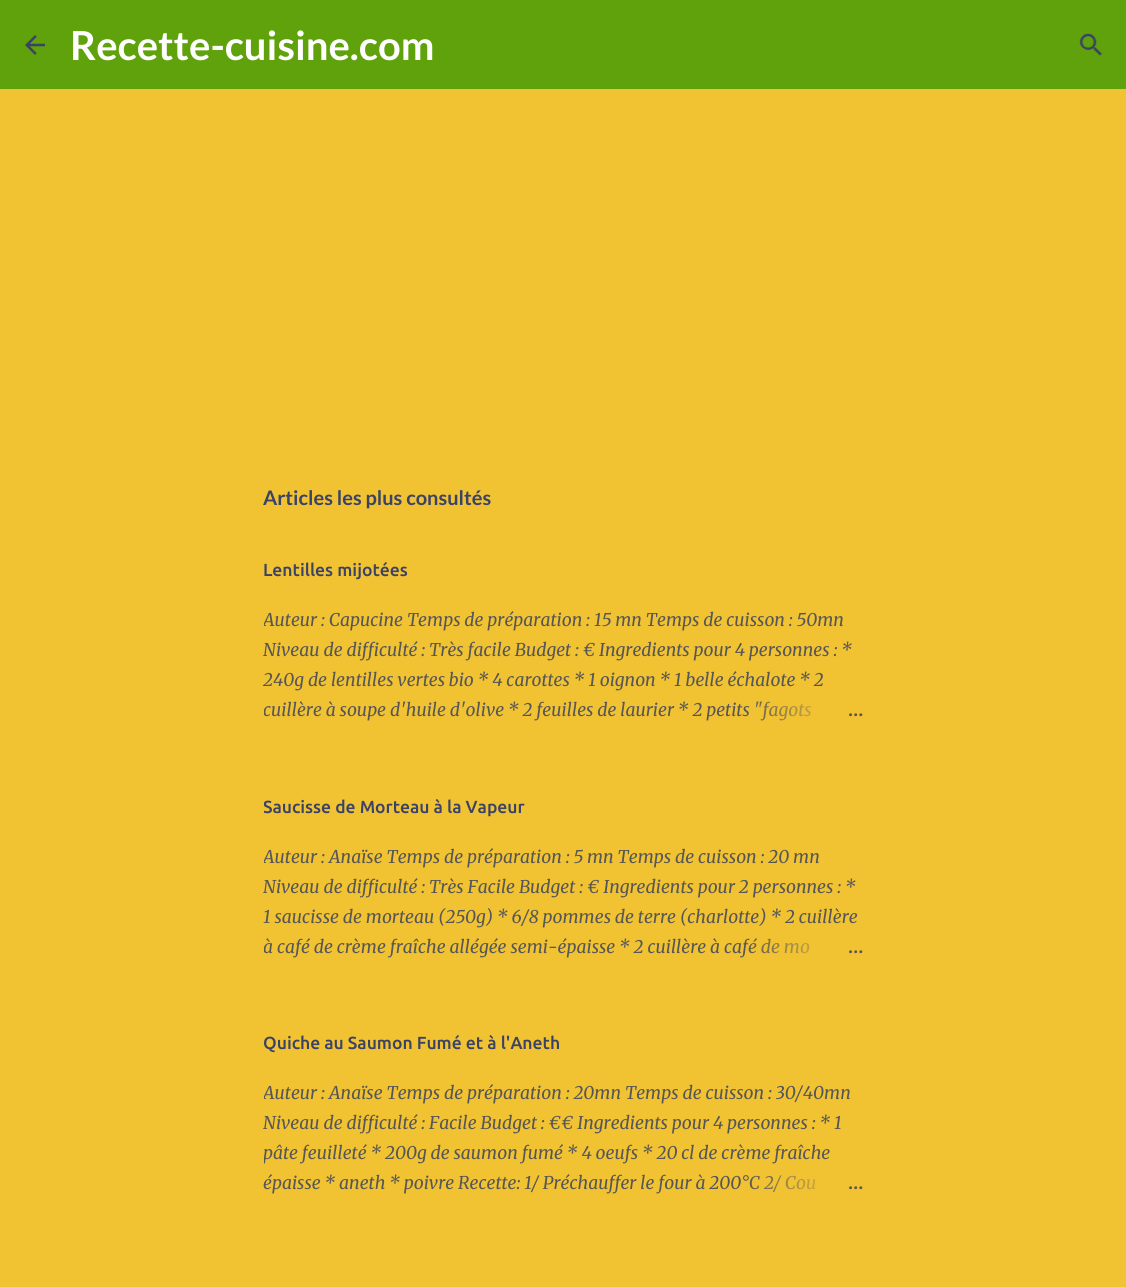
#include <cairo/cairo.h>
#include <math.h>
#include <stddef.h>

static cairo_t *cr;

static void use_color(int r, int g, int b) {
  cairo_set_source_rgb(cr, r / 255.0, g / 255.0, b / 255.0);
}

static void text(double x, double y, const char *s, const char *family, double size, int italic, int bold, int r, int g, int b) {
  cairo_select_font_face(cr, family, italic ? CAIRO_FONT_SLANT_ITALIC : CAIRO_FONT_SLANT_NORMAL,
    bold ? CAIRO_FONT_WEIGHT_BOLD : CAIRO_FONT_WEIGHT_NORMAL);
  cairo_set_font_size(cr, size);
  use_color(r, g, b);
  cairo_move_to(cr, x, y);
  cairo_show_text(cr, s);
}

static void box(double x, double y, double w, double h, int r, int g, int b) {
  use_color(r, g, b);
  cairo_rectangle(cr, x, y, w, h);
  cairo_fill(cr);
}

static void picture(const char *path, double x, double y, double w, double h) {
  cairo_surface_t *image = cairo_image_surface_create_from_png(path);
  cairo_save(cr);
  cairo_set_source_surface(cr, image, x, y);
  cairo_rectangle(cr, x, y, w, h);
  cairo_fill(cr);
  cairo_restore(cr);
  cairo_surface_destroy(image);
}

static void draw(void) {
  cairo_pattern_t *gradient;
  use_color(241, 194, 50);
  cairo_paint(cr);
  box(0, 0, 1126, 89, 96, 162, 11);
  picture("img_01.png", 25, 35, 20, 20);
  picture("img_02.png", 1079, 33, 24, 23);
  text(70, 60, "Recette-cuisine.com", "Lato", 40, 0, 1, 255, 255, 255);
  text(263, 505, "Articles les plus consultés", "Lato", 20, 0, 1, 58, 66, 102);
  text(263, 576, "Lentilles mijotées", "Ubuntu Medium", 17.5, 0, 0, 58, 66, 102);
  cairo_save(cr);
  cairo_rectangle(cr, 264, 605, 600, 120);
  cairo_clip(cr);
  text(263, 626, "Auteur : Capucine Temps de préparation :", "Merriweather", 17.5, 1, 0, 86, 86, 86);
  cairo_restore(cr);
  text(594, 626, "15 mn Temps de cuisson : 50mn", "Merriweather", 17.5, 1, 0, 86, 86, 86);
  text(263, 656, "Niveau de difficulté : Très facile Budget : € Ingredients pour 4 personnes : *", "Merriweather", 17.5, 1, 0, 86, 86, 86);
  text(263, 686, "240g de lentilles vertes bio * 4 carottes * 1 oignon * 1 belle échalote * 2", "Merriweather", 17.5, 1, 0, 86, 86, 86);
  cairo_save(cr);
  cairo_rectangle(cr, 264, 605, 600, 120);
  cairo_clip(cr);
  text(263, 716, "cuillère à soupe d'huile d'olive * 2 feuilles de laurier * 2 petits \"fagots", "Merriweather", 17.5, 1, 0, 86, 86, 86);
  cairo_restore(cr);
  gradient = cairo_pattern_create_linear(864, 710, 744, 710);
  cairo_pattern_add_color_stop_rgba(gradient, 0, 0.945, 0.761, 0.196, 1);
  cairo_pattern_add_color_stop_rgba(gradient, 0.2, 0.945, 0.761, 0.196, 1);
  cairo_pattern_add_color_stop_rgba(gradient, 1, 0.945, 0.761, 0.196, 0);
  cairo_set_source(cr, gradient);
  cairo_pattern_destroy(gradient);
  cairo_rectangle(cr, 746, 701, 66, 20);
  cairo_fill(cr);
  text(848, 716, "…", "Merriweather", 17.5, 0, 1, 86, 86, 86);
  cairo_save(cr);
  cairo_rectangle(cr, 264, 466, 600, 788);
  cairo_clip(cr);
  text(263, 813, "Saucisse de Morteau à la Vapeur", "Ubuntu Medium", 17.5, 0, 0, 58, 66, 102);
  cairo_restore(cr);
  cairo_save(cr);
  cairo_rectangle(cr, 264, 841, 600, 120);
  cairo_clip(cr);
  text(263, 863, "Auteur :", "Merriweather", 17.5, 1, 0, 86, 86, 86);
  cairo_restore(cr);
  text(329, 863, "Anaïse Temps de préparation : 5 mn Temps de cuisson : 20 mn", "Merriweather", 17.5, 1, 0, 86, 86, 86);
  text(263, 893, "Niveau de difficulté : Très Facile Budget : € Ingredients pour 2 personnes : *", "Merriweather", 17.5, 1, 0, 86, 86, 86);
  text(263, 923, "1 saucisse de morteau (250g) * 6/8 pommes de terre (charlotte) * 2 cuillère", "Merriweather", 17.5, 1, 0, 86, 86, 86);
  cairo_save(cr);
  cairo_rectangle(cr, 264, 841, 600, 120);
  cairo_clip(cr);
  text(263, 953, "à café de crème fraîche allégée semi-épaisse * 2 cuillère à café de mo", "Merriweather", 17.5, 1, 0, 86, 86, 86);
  cairo_restore(cr);
  gradient = cairo_pattern_create_linear(864, 946, 744, 946);
  cairo_pattern_add_color_stop_rgba(gradient, 0, 0.945, 0.761, 0.196, 1);
  cairo_pattern_add_color_stop_rgba(gradient, 0.2, 0.945, 0.761, 0.196, 1);
  cairo_pattern_add_color_stop_rgba(gradient, 1, 0.945, 0.761, 0.196, 0);
  cairo_set_source(cr, gradient);
  cairo_pattern_destroy(gradient);
  cairo_rectangle(cr, 746, 938, 64, 16);
  cairo_fill(cr);
  text(848, 953, "…", "Merriweather", 17.5, 0, 1, 86, 86, 86);
  text(263, 1049, "Quiche au Saumon Fumé et à l'Aneth", "Ubuntu Medium", 17.5, 0, 0, 58, 66, 102);
  cairo_save(cr);
  cairo_rectangle(cr, 264, 1078, 600, 120);
  cairo_clip(cr);
  text(263, 1099, "Auteur :", "Merriweather", 17.5, 1, 0, 86, 86, 86);
  cairo_restore(cr);
  text(329, 1099, "Anaïse Temps de préparation : 20mn Temps de cuisson : 30/40mn", "Merriweather", 17.5, 1, 0, 86, 86, 86);
  text(263, 1129, "Niveau de difficulté : Facile Budget : €€ Ingredients pour 4 personnes : * 1", "Merriweather", 17.5, 1, 0, 86, 86, 86);
  cairo_save(cr);
  cairo_rectangle(cr, 264, 1078, 600, 120);
  cairo_clip(cr);
  text(263, 1159, "pâte feuilleté * 200g de saumon fumé * 4 oeufs * 20 cl de crème fraîche", "Merriweather", 17.5, 1, 0, 86, 86, 86);
  cairo_restore(cr);
  text(263, 1189, "épaisse * aneth * poivre Recette: 1/ Préchauffer le four à 200°C 2/ Cou", "Merriweather", 17.5, 1, 0, 86, 86, 86);
  gradient = cairo_pattern_create_linear(864, 1183, 744, 1183);
  cairo_pattern_add_color_stop_rgba(gradient, 0, 0.945, 0.761, 0.196, 1);
  cairo_pattern_add_color_stop_rgba(gradient, 0.2, 0.945, 0.761, 0.196, 1);
  cairo_pattern_add_color_stop_rgba(gradient, 1, 0.945, 0.761, 0.196, 0);
  cairo_set_source(cr, gradient);
  cairo_pattern_destroy(gradient);
  cairo_rectangle(cr, 746, 1175, 70, 18);
  cairo_fill(cr);
  text(848, 1189, "…", "Merriweather", 17.5, 0, 1, 86, 86, 86);
}

int main(void) {
  cairo_surface_t *surface = cairo_image_surface_create(CAIRO_FORMAT_RGB24, 1126, 1287);
  cr = cairo_create(surface);
  cairo_font_options_t *options = cairo_font_options_create();
  cairo_font_options_set_hint_metrics(options, CAIRO_HINT_METRICS_OFF);
  cairo_font_options_set_hint_style(options, CAIRO_HINT_STYLE_NONE);
  cairo_set_font_options(cr, options);
  cairo_set_miter_limit(cr, 4);
  draw();
  cairo_surface_write_to_png(surface, "out.png");
  cairo_font_options_destroy(options);
  cairo_destroy(cr);
  cairo_surface_destroy(surface);
  return 0;
}
